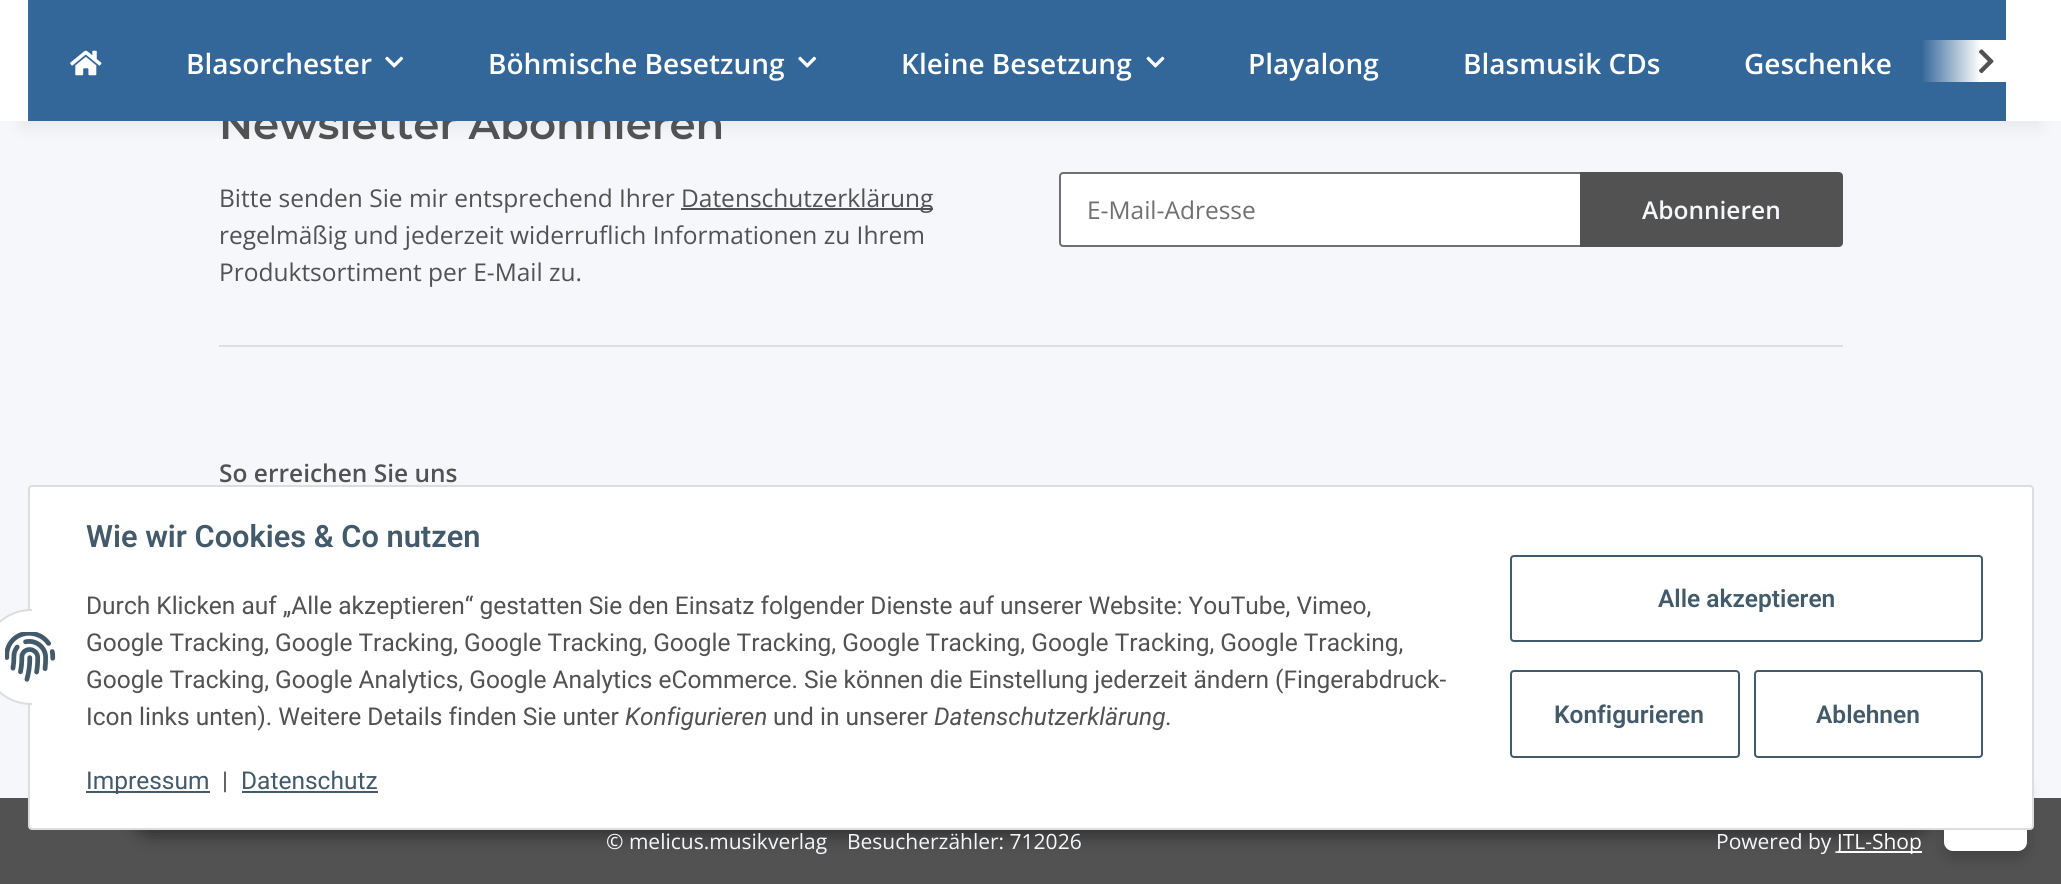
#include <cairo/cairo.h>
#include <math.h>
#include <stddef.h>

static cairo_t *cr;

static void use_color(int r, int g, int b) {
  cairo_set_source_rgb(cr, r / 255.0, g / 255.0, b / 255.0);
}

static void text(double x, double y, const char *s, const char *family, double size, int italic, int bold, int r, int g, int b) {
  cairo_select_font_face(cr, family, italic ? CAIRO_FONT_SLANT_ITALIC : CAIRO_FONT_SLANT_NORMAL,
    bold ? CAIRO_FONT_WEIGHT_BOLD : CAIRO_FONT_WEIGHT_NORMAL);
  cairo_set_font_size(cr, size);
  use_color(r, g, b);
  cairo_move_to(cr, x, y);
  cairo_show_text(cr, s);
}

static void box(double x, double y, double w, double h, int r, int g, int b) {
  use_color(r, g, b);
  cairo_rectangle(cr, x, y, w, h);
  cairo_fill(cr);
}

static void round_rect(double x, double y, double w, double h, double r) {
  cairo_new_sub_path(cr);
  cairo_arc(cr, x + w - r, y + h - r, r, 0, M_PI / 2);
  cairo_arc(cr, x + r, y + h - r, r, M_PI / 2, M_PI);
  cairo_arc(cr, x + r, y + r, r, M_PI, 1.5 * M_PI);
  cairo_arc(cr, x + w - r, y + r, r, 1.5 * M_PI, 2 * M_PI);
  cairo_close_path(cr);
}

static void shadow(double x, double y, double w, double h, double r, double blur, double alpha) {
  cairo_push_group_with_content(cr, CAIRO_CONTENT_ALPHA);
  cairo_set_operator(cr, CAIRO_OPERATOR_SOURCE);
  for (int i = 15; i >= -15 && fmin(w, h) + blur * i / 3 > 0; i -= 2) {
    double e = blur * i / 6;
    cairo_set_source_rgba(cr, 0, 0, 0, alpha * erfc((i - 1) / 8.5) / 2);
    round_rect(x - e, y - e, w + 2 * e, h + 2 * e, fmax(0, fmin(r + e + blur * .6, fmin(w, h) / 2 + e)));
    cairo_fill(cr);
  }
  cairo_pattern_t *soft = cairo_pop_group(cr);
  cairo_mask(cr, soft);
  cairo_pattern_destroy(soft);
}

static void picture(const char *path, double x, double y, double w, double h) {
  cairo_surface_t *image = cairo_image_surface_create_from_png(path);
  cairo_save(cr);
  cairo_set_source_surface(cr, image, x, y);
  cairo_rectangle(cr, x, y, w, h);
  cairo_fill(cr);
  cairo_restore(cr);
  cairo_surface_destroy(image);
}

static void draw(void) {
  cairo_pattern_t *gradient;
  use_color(245, 247, 250);
  cairo_paint(cr);
  use_color(0, 0, 0);
  shadow(21, 49, 2020, 79, 0, 8, 0.06);
  box(681, 208, 252, 2, 82, 82, 82);
  use_color(255, 255, 255);
  cairo_new_path(cr);
  cairo_move_to(cr, 1063, 173);
  cairo_line_to(cr, 1581, 173);
  cairo_line_to(cr, 1581, 246);
  cairo_line_to(cr, 1063, 246);
  cairo_curve_to(cr, 1061.5, 246, 1060, 244.5, 1060, 243);
  cairo_line_to(cr, 1060, 176);
  cairo_curve_to(cr, 1060, 174.5, 1061.5, 173, 1063, 173);
  cairo_close_path(cr);
  cairo_fill_preserve(cr);
  use_color(112, 112, 112);
  cairo_stroke(cr);
  use_color(82, 82, 82);
  cairo_new_path(cr);
  cairo_move_to(cr, 1581, 173);
  cairo_line_to(cr, 1839, 173);
  cairo_curve_to(cr, 1840.5, 173, 1842, 174.5, 1842, 176);
  cairo_line_to(cr, 1842, 243);
  cairo_curve_to(cr, 1842, 244.5, 1840.5, 246, 1839, 246);
  cairo_line_to(cr, 1581, 246);
  cairo_close_path(cr);
  cairo_fill_preserve(cr);
  cairo_stroke(cr);
  box(219, 345, 1624, 2, 221, 222, 225);
  box(0, 798, 2061, 86, 82, 82, 82);
  box(1838, 851, 84, 2, 255, 255, 255);
  use_color(0, 0, 0);
  shadow(1944, 781, 83, 77, 9, 7, 0.2);
  use_color(255, 255, 255);
  round_rect(1944, 774, 83, 77, 9);
  cairo_fill(cr);
  use_color(0, 0, 0);
  shadow(130, 779, 1802, 56, 28, 9, 0.45);
  use_color(255, 255, 255);
  round_rect(29, 486, 2004, 343, 3);
  cairo_fill_preserve(cr);
  use_color(221, 221, 221);
  cairo_stroke(cr);
  use_color(255, 255, 255);
  cairo_arc(cr, 31, 657, 47, 0, 2 * M_PI);
  cairo_fill_preserve(cr);
  use_color(221, 221, 221);
  cairo_stroke(cr);
  box(32, 609, 47, 96, 255, 255, 255);
  picture("img_05.png", 5, 632, 51, 50);
  box(86, 791, 124, 2, 67, 90, 107);
  box(242, 791, 136, 2, 67, 90, 107);
  round_rect(1511, 556, 471, 85, 3);
  cairo_stroke(cr);
  round_rect(1511, 671, 228, 86, 3);
  cairo_stroke(cr);
  round_rect(1755, 671, 227, 86, 3);
  cairo_stroke(cr);
  text(219, 139, "Newsletter Abonnieren", "Montserrat SemiBold", 42, 0, 0, 82, 82, 82);
  box(0, 0, 2061, 121, 255, 255, 255);
  box(28, 0, 1978, 121, 51, 103, 153);
  gradient = cairo_pattern_create_linear(1922, 61, 2006, 61);
  cairo_pattern_add_color_stop_rgba(gradient, 0, 1, 1, 1, 0.01);
  cairo_pattern_add_color_stop_rgba(gradient, 0.7, 1, 1, 1, 1);
  cairo_set_source(cr, gradient);
  cairo_pattern_destroy(gradient);
  cairo_rectangle(cr, 1923, 40, 83, 42);
  cairo_fill(cr);
  picture("img_04.png", 1979, 49, 15, 25);
  text(1744, 74, "Geschenke", "Open Sans SemiBold", 28, 0, 0, 255, 255, 255);
  text(1463, 74, "Blasmusik CDs", "Open Sans SemiBold", 28, 0, 0, 255, 255, 255);
  text(1248, 74, "Playalong", "Open Sans SemiBold", 28, 0, 0, 255, 255, 255);
  picture("img_03.png", 1146, 56, 19, 12);
  text(901, 74, "Kleine Besetzung", "Open Sans SemiBold", 28, 0, 0, 255, 255, 255);
  picture("img_02.png", 798, 56, 19, 12);
  text(488, 74, "Böhmische Besetzung", "Open Sans SemiBold", 28, 0, 0, 255, 255, 255);
  picture("img_02.png", 385, 56, 19, 12);
  text(186, 74, "Blasorchester", "Open Sans SemiBold", 28, 0, 0, 255, 255, 255);
  picture("img_01.png", 70, 50, 32, 26);
  text(219, 207, "Bitte senden Sie mir entsprechend Ihrer", "Open Sans", 24.5, 0, 0, 82, 82, 82);
  text(681, 207, "Datenschutzerklärung", "Open Sans", 24.5, 0, 0, 82, 82, 82);
  text(219, 244, "regelmäßig und jederzeit widerruflich Informationen zu Ihrem", "Open Sans", 24.5, 0, 0, 82, 82, 82);
  text(219, 281, "Produktsortiment per E-Mail zu.", "Open Sans", 24.5, 0, 0, 82, 82, 82);
  text(1087, 219, "E-Mail-Adresse", "Open Sans", 24.5, 0, 0, 112, 112, 112);
  text(1642, 219, "Abonnieren", "Open Sans SemiBold", 24.5, 0, 0, 245, 247, 250);
  text(219, 482, "So erreichen Sie uns", "Open Sans SemiBold", 24.5, 0, 0, 82, 82, 82);
  text(606, 849, "© melicus.musikverlag", "Open Sans", 21, 0, 0, 245, 247, 250);
  text(847, 849, "Besucherzähler: 712026", "Open Sans", 21, 0, 0, 245, 247, 250);
  text(1716, 849, "Powered by", "Open Sans", 21, 0, 0, 245, 247, 250);
  text(1837, 849, "JTL-Shop", "Open Sans", 21, 0, 0, 255, 255, 255);
  text(86, 547, "Wie wir Cookies & Co nutzen", "Roboto SemiBold", 30.75, 0, 0, 67, 90, 107);
  text(86, 614, "Durch Klicken auf „Alle akzeptieren“ gestatten Sie den Einsatz folgender Dienste auf unserer Website: YouTube, Vimeo,", "Roboto", 24.5, 0, 0, 82, 82, 82);
  text(86, 651, "Google Tracking, Google Tracking, Google Tracking, Google Tracking, Google Tracking, Google Tracking, Google Tracking,", "Roboto", 24.5, 0, 0, 82, 82, 82);
  text(86, 688, "Google Tracking, Google Analytics, Google Analytics eCommerce. Sie können die Einstellung jederzeit ändern (Fingerabdruck-", "Roboto", 24.5, 0, 0, 82, 82, 82);
  text(86, 725, "Icon links unten). Weitere Details finden Sie unter", "Roboto", 24.5, 0, 0, 82, 82, 82);
  text(625, 725, "Konfigurieren", "Roboto", 24.5, 1, 0, 82, 82, 82);
  text(773, 725, "und in unserer", "Roboto", 24.5, 0, 0, 82, 82, 82);
  text(934, 725, "Datenschutzerklärung", "Roboto", 24.5, 1, 0, 82, 82, 82);
  text(1165, 725, ".", "Roboto", 24.5, 0, 0, 82, 82, 82);
  text(86, 789, "Impressum", "Roboto", 24.5, 0, 0, 67, 90, 107);
  text(222, 789, "|", "Roboto", 24.5, 0, 0, 82, 82, 82);
  text(241, 789, "Datenschutz", "Roboto", 24.5, 0, 0, 67, 90, 107);
  text(1658, 607, "Alle akzeptieren", "Roboto SemiBold", 24.5, 0, 0, 67, 90, 107);
  text(1554, 723, "Konfigurieren", "Roboto SemiBold", 24.5, 0, 0, 67, 90, 107);
  text(1816, 723, "Ablehnen", "Roboto SemiBold", 24.5, 0, 0, 67, 90, 107);
}

int main(void) {
  cairo_surface_t *surface = cairo_image_surface_create(CAIRO_FORMAT_RGB24, 2061, 884);
  cr = cairo_create(surface);
  cairo_font_options_t *options = cairo_font_options_create();
  cairo_font_options_set_hint_metrics(options, CAIRO_HINT_METRICS_OFF);
  cairo_font_options_set_hint_style(options, CAIRO_HINT_STYLE_NONE);
  cairo_set_font_options(cr, options);
  cairo_set_miter_limit(cr, 4);
  draw();
  cairo_surface_write_to_png(surface, "out.png");
  cairo_font_options_destroy(options);
  cairo_destroy(cr);
  cairo_surface_destroy(surface);
  return 0;
}
